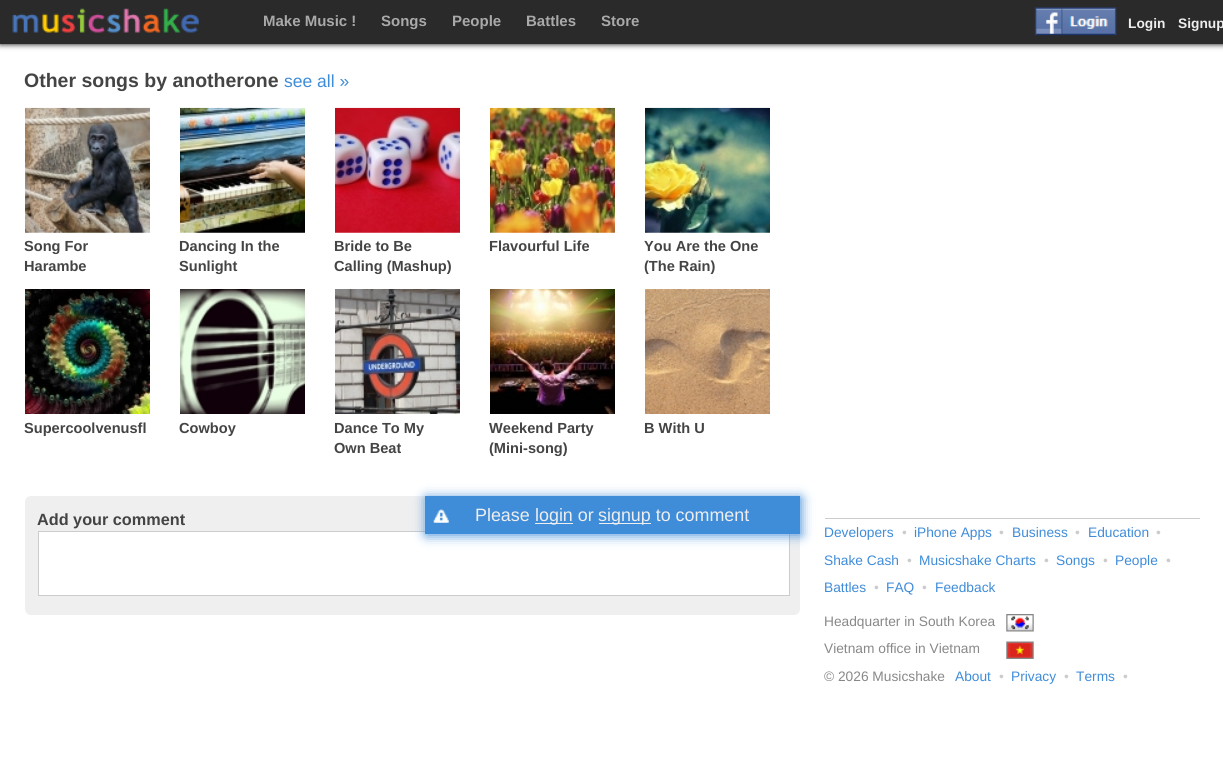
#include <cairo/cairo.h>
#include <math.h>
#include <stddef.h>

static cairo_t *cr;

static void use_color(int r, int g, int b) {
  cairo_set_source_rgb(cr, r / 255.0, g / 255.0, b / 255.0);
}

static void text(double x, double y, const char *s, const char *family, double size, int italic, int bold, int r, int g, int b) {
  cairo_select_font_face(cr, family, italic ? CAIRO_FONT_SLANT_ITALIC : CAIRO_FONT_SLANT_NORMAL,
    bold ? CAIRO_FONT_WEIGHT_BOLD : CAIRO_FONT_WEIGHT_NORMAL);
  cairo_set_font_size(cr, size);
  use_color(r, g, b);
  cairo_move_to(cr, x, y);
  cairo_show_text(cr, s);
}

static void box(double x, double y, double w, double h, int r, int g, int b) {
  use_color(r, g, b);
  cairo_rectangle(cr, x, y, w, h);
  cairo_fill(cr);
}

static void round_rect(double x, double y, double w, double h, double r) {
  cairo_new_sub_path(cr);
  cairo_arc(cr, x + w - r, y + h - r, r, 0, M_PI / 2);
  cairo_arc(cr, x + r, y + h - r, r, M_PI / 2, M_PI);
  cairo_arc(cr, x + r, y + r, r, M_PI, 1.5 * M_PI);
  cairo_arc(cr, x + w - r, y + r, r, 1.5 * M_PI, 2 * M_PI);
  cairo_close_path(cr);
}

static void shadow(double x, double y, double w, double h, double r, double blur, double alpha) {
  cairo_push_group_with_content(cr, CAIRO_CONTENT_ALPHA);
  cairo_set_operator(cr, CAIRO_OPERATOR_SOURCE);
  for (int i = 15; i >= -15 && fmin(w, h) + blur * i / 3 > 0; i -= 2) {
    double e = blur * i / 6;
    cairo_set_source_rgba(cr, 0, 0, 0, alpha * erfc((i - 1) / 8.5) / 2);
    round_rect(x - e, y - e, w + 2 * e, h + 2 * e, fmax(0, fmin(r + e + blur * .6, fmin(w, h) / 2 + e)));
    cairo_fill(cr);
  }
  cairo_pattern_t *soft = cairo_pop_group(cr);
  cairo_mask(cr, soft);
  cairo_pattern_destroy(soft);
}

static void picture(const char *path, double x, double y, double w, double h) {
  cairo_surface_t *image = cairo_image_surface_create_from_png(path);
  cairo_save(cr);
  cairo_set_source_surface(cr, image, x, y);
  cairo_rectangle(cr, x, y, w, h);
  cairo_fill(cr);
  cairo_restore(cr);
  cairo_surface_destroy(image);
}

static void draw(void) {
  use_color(255, 255, 255);
  cairo_paint(cr);
  use_color(0, 0, 0);
  shadow(0, 0, 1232, 44, 0, 3, 1);
  box(0, 0, 1223, 44, 42, 42, 42);
  picture("img_01.png", 12, 8, 187, 25);
  picture("img_02.png", 1034, 7, 83, 29);
  picture("img_03.png", 25, 107, 125, 126);
  picture("img_04.png", 180, 107, 125, 126);
  picture("img_05.png", 335, 107, 125, 126);
  picture("img_06.png", 490, 107, 125, 126);
  picture("img_07.png", 645, 107, 125, 126);
  picture("img_08.png", 25, 289, 125, 125);
  picture("img_09.png", 180, 289, 125, 125);
  picture("img_10.png", 335, 289, 125, 125);
  picture("img_11.png", 490, 289, 125, 125);
  picture("img_12.png", 645, 289, 125, 125);
  use_color(239, 239, 239);
  round_rect(25, 496, 775, 119, 6);
  cairo_fill(cr);
  use_color(255, 255, 255);
  cairo_rectangle(cr, 38.5, 531.5, 751, 64);
  cairo_fill_preserve(cr);
  use_color(204, 204, 204);
  cairo_set_line_width(cr, 1);
  cairo_stroke(cr);
  use_color(63, 140, 217);
  shadow(426, 498, 375, 37, 0, 6, 1);
  box(425, 496, 375, 38, 63, 140, 217);
  picture("img_13.png", 433, 509, 16, 14);
  box(535, 523, 38, 1, 238, 238, 238);
  box(599, 523, 52, 1, 238, 238, 238);
  box(825, 518, 375, 1, 204, 204, 204);
  picture("img_14.png", 1006, 614, 28, 18);
  picture("img_15.png", 1006, 641, 28, 18);
  text(263, 26, "Make Music !", "Liberation Sans", 15, 0, 1, 169, 169, 169);
  text(381, 26, "Songs", "Liberation Sans", 15, 0, 1, 169, 169, 169);
  text(452, 26, "People", "Liberation Sans", 15, 0, 1, 169, 169, 169);
  text(526, 26, "Battles", "Liberation Sans", 15, 0, 1, 169, 169, 169);
  text(601, 26, "Store", "Liberation Sans", 15, 0, 1, 169, 169, 169);
  text(1128, 28, "Login", "Liberation Sans", 13.75, 0, 1, 238, 238, 238);
  text(1178, 28, "Signup", "Liberation Sans", 13.75, 0, 1, 238, 238, 238);
  text(24, 87, "Other songs by anotherone", "Liberation Sans", 19.5, 0, 1, 68, 68, 68);
  text(284, 87, "see all »", "Liberation Sans", 17.5, 0, 0, 63, 140, 217);
  text(24, 251, "Song For", "Liberation Sans", 14.6, 0, 1, 68, 68, 68);
  text(24, 271, "Harambe", "Liberation Sans", 14.6, 0, 1, 68, 68, 68);
  text(179, 251, "Dancing In the", "Liberation Sans", 14.6, 0, 1, 68, 68, 68);
  text(179, 271, "Sunlight", "Liberation Sans", 14.6, 0, 1, 68, 68, 68);
  text(334, 251, "Bride to Be", "Liberation Sans", 14.6, 0, 1, 68, 68, 68);
  text(334, 271, "Calling (Mashup)", "Liberation Sans", 14.6, 0, 1, 68, 68, 68);
  text(489, 251, "Flavourful Life", "Liberation Sans", 14.6, 0, 1, 68, 68, 68);
  text(644, 251, "You Are the One", "Liberation Sans", 14.6, 0, 1, 68, 68, 68);
  text(644, 271, "(The Rain)", "Liberation Sans", 14.6, 0, 1, 68, 68, 68);
  text(24, 433, "Supercoolvenusfl", "Liberation Sans", 14.6, 0, 1, 68, 68, 68);
  text(179, 433, "Cowboy", "Liberation Sans", 14.6, 0, 1, 68, 68, 68);
  text(334, 433, "Dance To My", "Liberation Sans", 14.6, 0, 1, 68, 68, 68);
  text(334, 453, "Own Beat", "Liberation Sans", 14.6, 0, 1, 68, 68, 68);
  text(489, 433, "Weekend Party", "Liberation Sans", 14.6, 0, 1, 68, 68, 68);
  text(489, 453, "(Mini-song)", "Liberation Sans", 14.6, 0, 1, 68, 68, 68);
  text(644, 433, "B With U", "Liberation Sans", 14.6, 0, 1, 68, 68, 68);
  text(37, 525, "Add your comment", "Liberation Sans", 16.25, 0, 1, 68, 68, 68);
  text(475, 521, "Please", "Liberation Sans", 17.9, 0, 0, 238, 238, 238);
  text(535, 521, "login or", "Liberation Sans", 17.9, 0, 0, 238, 238, 238);
  text(598, 521, "signup to comment", "Liberation Sans", 17.9, 0, 0, 238, 238, 238);
  text(824, 537, "Developers", "Liberation Sans", 13.75, 0, 0, 63, 140, 217);
  text(902, 537, "•", "Liberation Sans", 13.75, 0, 0, 204, 204, 204);
  text(914, 537, "iPhone Apps", "Liberation Sans", 13.75, 0, 0, 63, 140, 217);
  text(999, 537, "•", "Liberation Sans", 13.75, 0, 0, 204, 204, 204);
  text(1012, 537, "Business", "Liberation Sans", 13.75, 0, 0, 63, 140, 217);
  text(1075, 537, "•", "Liberation Sans", 13.75, 0, 0, 204, 204, 204);
  text(1088, 537, "Education", "Liberation Sans", 13.75, 0, 0, 63, 140, 217);
  text(1156, 537, "•", "Liberation Sans", 13.75, 0, 0, 204, 204, 204);
  text(824, 565, "Shake Cash", "Liberation Sans", 13.75, 0, 0, 63, 140, 217);
  text(907, 565, "•", "Liberation Sans", 13.75, 0, 0, 204, 204, 204);
  text(919, 565, "Musicshake Charts", "Liberation Sans", 13.75, 0, 0, 63, 140, 217);
  text(1044, 565, "•", "Liberation Sans", 13.75, 0, 0, 204, 204, 204);
  text(1056, 565, "Songs", "Liberation Sans", 13.75, 0, 0, 63, 140, 217);
  text(1103, 565, "•", "Liberation Sans", 13.75, 0, 0, 204, 204, 204);
  text(1115, 565, "People", "Liberation Sans", 13.75, 0, 0, 63, 140, 217);
  text(1166, 565, "•", "Liberation Sans", 13.75, 0, 0, 204, 204, 204);
  text(824, 592, "Battles", "Liberation Sans", 13.75, 0, 0, 63, 140, 217);
  text(874, 592, "•", "Liberation Sans", 13.75, 0, 0, 204, 204, 204);
  text(886, 592, "FAQ", "Liberation Sans", 13.75, 0, 0, 63, 140, 217);
  text(922, 592, "•", "Liberation Sans", 13.75, 0, 0, 204, 204, 204);
  text(935, 592, "Feedback", "Liberation Sans", 13.75, 0, 0, 63, 140, 217);
  text(824, 626, "Headquarter in South Korea", "Liberation Sans", 13.75, 0, 0, 136, 136, 136);
  text(824, 653, "Vietnam office in Vietnam", "Liberation Sans", 13.75, 0, 0, 136, 136, 136);
  text(824, 681, "© 2026 Musicshake", "Liberation Sans", 13.75, 0, 0, 136, 136, 136);
  text(955, 681, "About", "Liberation Sans", 13.75, 0, 0, 63, 140, 217);
  text(999, 681, "•", "Liberation Sans", 13.75, 0, 0, 204, 204, 204);
  text(1011, 681, "Privacy", "Liberation Sans", 13.75, 0, 0, 63, 140, 217);
  text(1064, 681, "•", "Liberation Sans", 13.75, 0, 0, 204, 204, 204);
  text(1076, 681, "Terms", "Liberation Sans", 13.75, 0, 0, 63, 140, 217);
  text(1123, 681, "•", "Liberation Sans", 13.75, 0, 0, 204, 204, 204);
}

int main(void) {
  cairo_surface_t *surface = cairo_image_surface_create(CAIRO_FORMAT_RGB24, 1223, 777);
  cr = cairo_create(surface);
  cairo_font_options_t *options = cairo_font_options_create();
  cairo_font_options_set_hint_metrics(options, CAIRO_HINT_METRICS_OFF);
  cairo_font_options_set_hint_style(options, CAIRO_HINT_STYLE_NONE);
  cairo_set_font_options(cr, options);
  cairo_set_miter_limit(cr, 4);
  draw();
  cairo_surface_write_to_png(surface, "out.png");
  cairo_font_options_destroy(options);
  cairo_destroy(cr);
  cairo_surface_destroy(surface);
  return 0;
}
